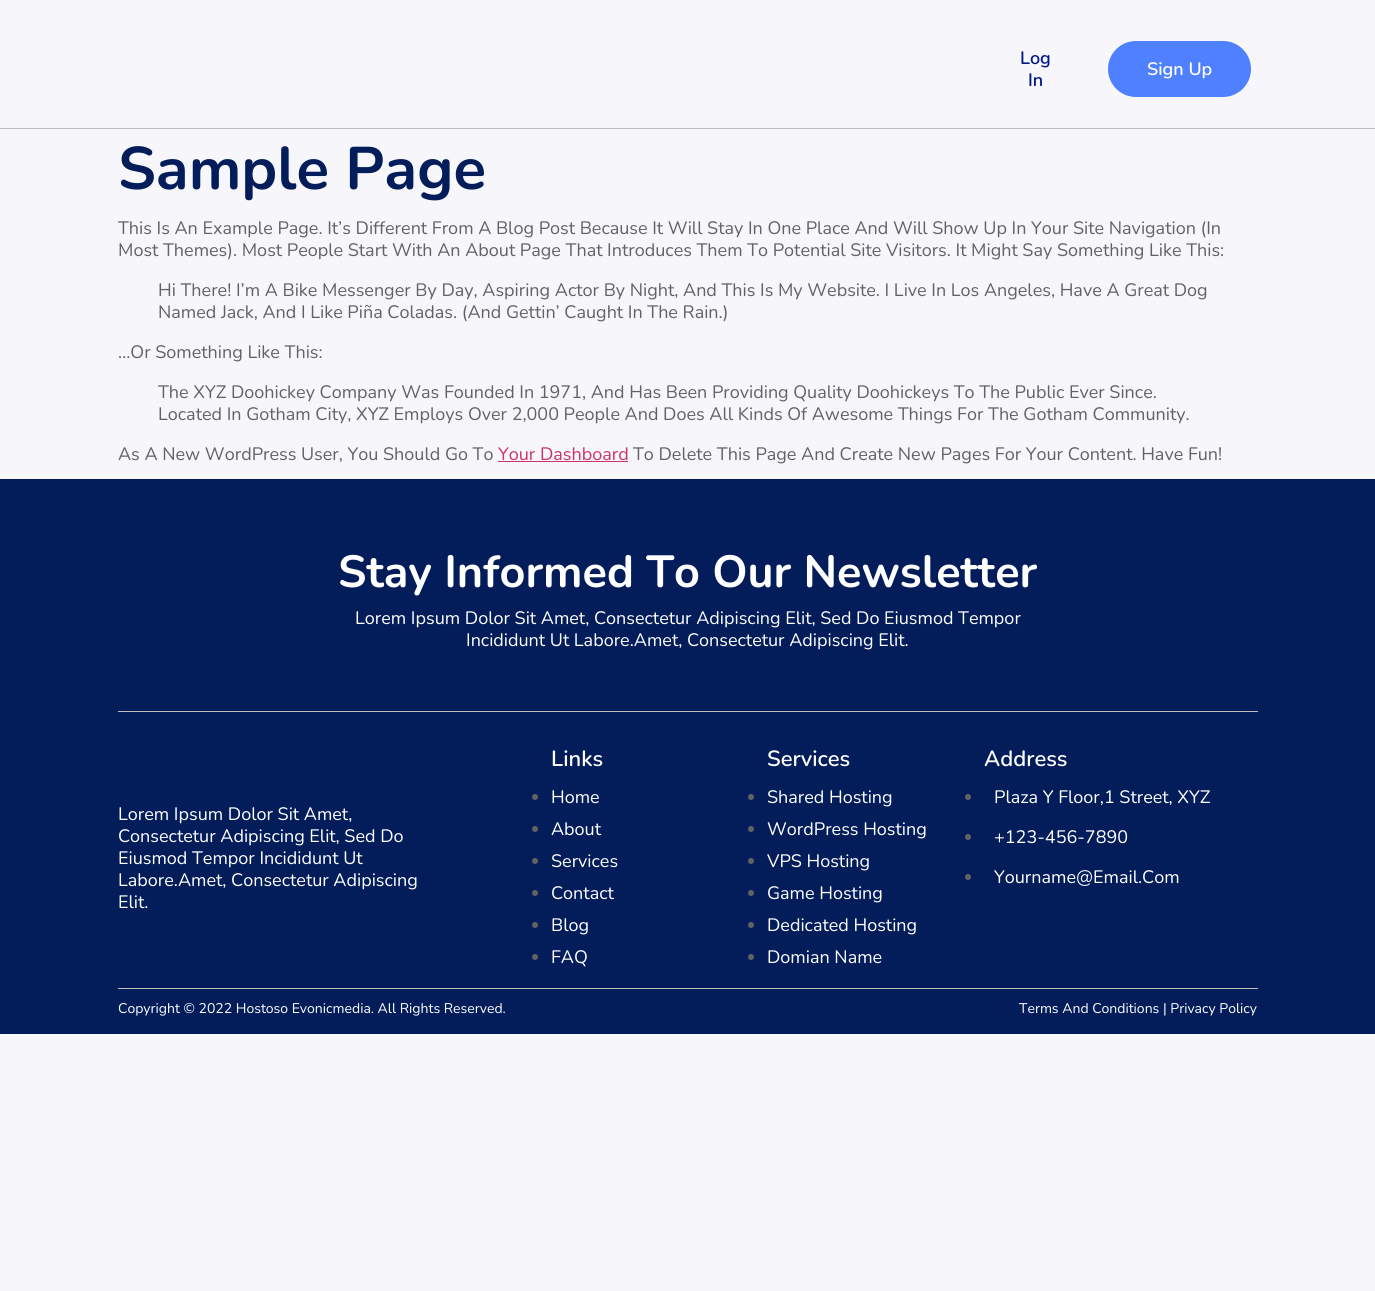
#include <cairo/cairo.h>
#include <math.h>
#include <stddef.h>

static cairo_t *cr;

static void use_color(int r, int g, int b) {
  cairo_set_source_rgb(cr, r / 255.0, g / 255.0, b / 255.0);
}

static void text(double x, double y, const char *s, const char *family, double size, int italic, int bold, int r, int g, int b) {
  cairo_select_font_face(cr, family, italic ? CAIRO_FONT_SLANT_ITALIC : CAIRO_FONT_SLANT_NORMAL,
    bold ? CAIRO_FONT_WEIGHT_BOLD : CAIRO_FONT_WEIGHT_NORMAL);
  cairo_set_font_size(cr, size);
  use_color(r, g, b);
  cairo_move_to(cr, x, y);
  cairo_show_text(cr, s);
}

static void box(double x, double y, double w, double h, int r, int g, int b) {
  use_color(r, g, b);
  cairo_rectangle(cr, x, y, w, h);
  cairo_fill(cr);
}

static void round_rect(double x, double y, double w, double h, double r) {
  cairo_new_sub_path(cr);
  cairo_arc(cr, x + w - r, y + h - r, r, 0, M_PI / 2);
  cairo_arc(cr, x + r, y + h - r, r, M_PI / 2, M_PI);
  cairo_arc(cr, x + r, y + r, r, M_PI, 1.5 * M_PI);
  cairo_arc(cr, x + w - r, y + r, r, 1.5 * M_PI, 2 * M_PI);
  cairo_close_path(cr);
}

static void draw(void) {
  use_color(247, 247, 251);
  cairo_paint(cr);
  box(0, 128, 1375, 1, 191, 191, 191);
  use_color(79, 128, 255);
  round_rect(1108, 41, 143, 56, 28);
  cairo_fill(cr);
  box(498, 461, 130, 1, 204, 51, 102);
  box(0, 479, 1375, 555, 3, 29, 91);
  box(118, 711, 1140, 1, 191, 191, 191);
  box(118, 988, 1140, 1, 191, 191, 191);
  use_color(98, 98, 98);
  cairo_arc(cr, 535, 797, 3, 0, 2 * M_PI);
  cairo_fill(cr);
  cairo_arc(cr, 535, 829, 3, 0, 2 * M_PI);
  cairo_fill(cr);
  cairo_arc(cr, 535, 861, 3, 0, 2 * M_PI);
  cairo_fill(cr);
  cairo_arc(cr, 535, 893, 3, 0, 2 * M_PI);
  cairo_fill(cr);
  cairo_arc(cr, 535, 925, 3, 0, 2 * M_PI);
  cairo_fill(cr);
  cairo_arc(cr, 535, 957, 3, 0, 2 * M_PI);
  cairo_fill(cr);
  cairo_arc(cr, 751, 797, 3, 0, 2 * M_PI);
  cairo_fill(cr);
  cairo_arc(cr, 751, 829, 3, 0, 2 * M_PI);
  cairo_fill(cr);
  cairo_arc(cr, 751, 861, 3, 0, 2 * M_PI);
  cairo_fill(cr);
  cairo_arc(cr, 751, 893, 3, 0, 2 * M_PI);
  cairo_fill(cr);
  cairo_arc(cr, 751, 925, 3, 0, 2 * M_PI);
  cairo_fill(cr);
  cairo_arc(cr, 751, 957, 3, 0, 2 * M_PI);
  cairo_fill(cr);
  cairo_arc(cr, 968, 797, 3, 0, 2 * M_PI);
  cairo_fill(cr);
  cairo_arc(cr, 968, 837, 3, 0, 2 * M_PI);
  cairo_fill(cr);
  cairo_arc(cr, 968, 877, 3, 0, 2 * M_PI);
  cairo_fill(cr);
  text(1020, 64, "Log", "Nunito SemiBold", 18, 0, 0, 0, 23, 137);
  text(1028, 86, "In", "Nunito SemiBold", 18, 0, 0, 0, 23, 137);
  text(1147, 75, "Sign Up", "Nunito SemiBold", 18, 0, 0, 255, 255, 255);
  text(118, 189, "Sample Page", "Nunito", 60, 0, 1, 3, 29, 91);
  text(118, 234, "This Is An Example Page. It’s Different From A Blog Post Because It Will Stay In One Place And Will Show Up In Your Site Navigation (In", "Nunito", 18, 0, 0, 98, 98, 98);
  text(118, 256, "Most Themes). Most People Start With An About Page That Introduces Them To Potential Site Visitors. It Might Say Something Like This:", "Nunito", 18, 0, 0, 98, 98, 98);
  text(158, 296, "Hi There! I’m A Bike Messenger By Day, Aspiring Actor By Night, And This Is My Website. I Live In Los Angeles, Have A Great Dog", "Nunito", 18, 0, 0, 98, 98, 98);
  text(158, 318, "Named Jack, And I Like Piña Coladas. (And Gettin’ Caught In The Rain.)", "Nunito", 18, 0, 0, 98, 98, 98);
  text(118, 358, "…Or Something Like This:", "Nunito", 18, 0, 0, 98, 98, 98);
  text(158, 398, "The XYZ Doohickey Company Was Founded In 1971, And Has Been Providing Quality Doohickeys To The Public Ever Since.", "Nunito", 18, 0, 0, 98, 98, 98);
  text(158, 420, "Located In Gotham City, XYZ Employs Over 2,000 People And Does All Kinds Of Awesome Things For The Gotham Community.", "Nunito", 18, 0, 0, 98, 98, 98);
  text(118, 460, "As A New WordPress User, You Should Go To", "Nunito", 18, 0, 0, 98, 98, 98);
  text(498, 460, "Your Dashboard", "Nunito", 18, 0, 0, 204, 51, 102);
  text(633, 460, "To Delete This Page And Create New Pages For Your Content. Have Fun!", "Nunito", 18, 0, 0, 98, 98, 98);
  text(338, 587, "Stay Informed To Our Newsletter", "Nunito", 45, 0, 1, 255, 255, 255);
  text(355, 624, "Lorem Ipsum Dolor Sit Amet, Consectetur Adipiscing Elit, Sed Do Eiusmod Tempor", "Nunito", 18, 0, 0, 255, 255, 255);
  text(466, 646, "Incididunt Ut Labore.Amet, Consectetur Adipiscing Elit.", "Nunito", 18, 0, 0, 255, 255, 255);
  text(118, 820, "Lorem Ipsum Dolor Sit Amet,", "Nunito", 18, 0, 0, 255, 255, 255);
  text(118, 842, "Consectetur Adipiscing Elit, Sed Do", "Nunito", 18, 0, 0, 255, 255, 255);
  text(118, 864, "Eiusmod Tempor Incididunt Ut", "Nunito", 18, 0, 0, 255, 255, 255);
  text(118, 886, "Labore.Amet, Consectetur Adipiscing", "Nunito", 18, 0, 0, 255, 255, 255);
  text(118, 908, "Elit.", "Nunito", 18, 0, 0, 255, 255, 255);
  text(551, 766, "Links", "Nunito SemiBold", 22, 0, 0, 255, 255, 255);
  text(551, 803, "Home", "Nunito", 18, 0, 0, 255, 255, 255);
  text(551, 835, "About", "Nunito", 18, 0, 0, 255, 255, 255);
  text(551, 867, "Services", "Nunito", 18, 0, 0, 255, 255, 255);
  text(551, 899, "Contact", "Nunito", 18, 0, 0, 255, 255, 255);
  text(551, 931, "Blog", "Nunito", 18, 0, 0, 255, 255, 255);
  text(551, 963, "FAQ", "Nunito", 18, 0, 0, 255, 255, 255);
  text(767, 766, "Services", "Nunito SemiBold", 22, 0, 0, 255, 255, 255);
  text(767, 803, "Shared Hosting", "Nunito", 18, 0, 0, 255, 255, 255);
  text(767, 835, "WordPress Hosting", "Nunito", 18, 0, 0, 255, 255, 255);
  text(767, 867, "VPS Hosting", "Nunito", 18, 0, 0, 255, 255, 255);
  text(767, 899, "Game Hosting", "Nunito", 18, 0, 0, 255, 255, 255);
  text(767, 931, "Dedicated Hosting", "Nunito", 18, 0, 0, 255, 255, 255);
  text(767, 963, "Domian Name", "Nunito", 18, 0, 0, 255, 255, 255);
  text(984, 766, "Address", "Nunito SemiBold", 22, 0, 0, 255, 255, 255);
  text(994, 803, "Plaza Y Floor,1 Street, XYZ", "Nunito", 18, 0, 0, 255, 255, 255);
  text(994, 843, "+123-456-7890", "Nunito", 18, 0, 0, 255, 255, 255);
  text(994, 883, "Yourname@Email.Com", "Nunito", 18, 0, 0, 255, 255, 255);
  text(118, 1013, "Copyright © 2022 Hostoso Evonicmedia. All Rights Reserved.", "Nunito", 14, 0, 0, 255, 255, 255);
  text(1019, 1013, "Terms And Conditions | Privacy Policy", "Nunito", 14, 0, 0, 255, 255, 255);
}

int main(void) {
  cairo_surface_t *surface = cairo_image_surface_create(CAIRO_FORMAT_RGB24, 1375, 1291);
  cr = cairo_create(surface);
  cairo_font_options_t *options = cairo_font_options_create();
  cairo_font_options_set_hint_metrics(options, CAIRO_HINT_METRICS_OFF);
  cairo_font_options_set_hint_style(options, CAIRO_HINT_STYLE_NONE);
  cairo_set_font_options(cr, options);
  cairo_set_miter_limit(cr, 4);
  draw();
  cairo_surface_write_to_png(surface, "out.png");
  cairo_font_options_destroy(options);
  cairo_destroy(cr);
  cairo_surface_destroy(surface);
  return 0;
}
